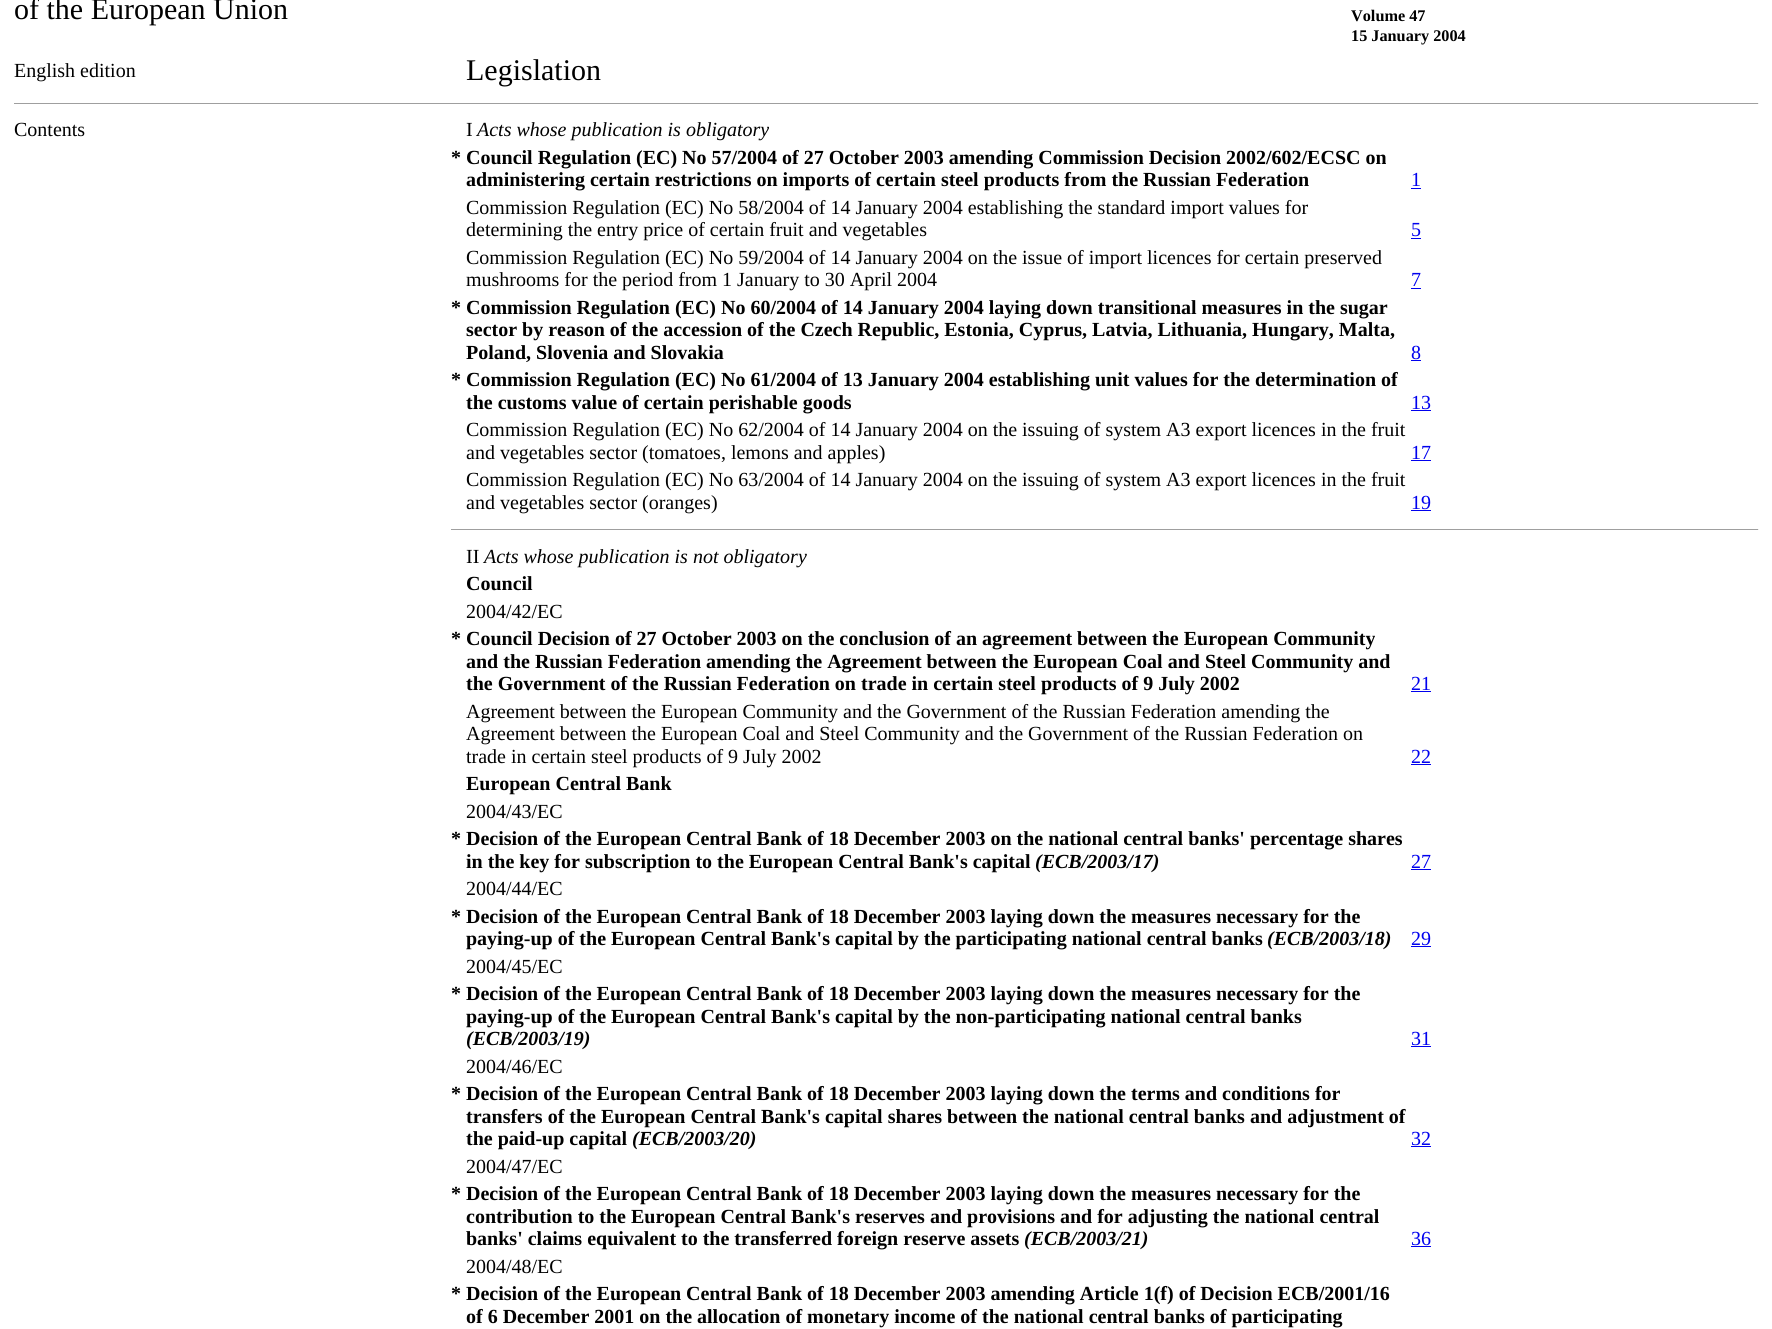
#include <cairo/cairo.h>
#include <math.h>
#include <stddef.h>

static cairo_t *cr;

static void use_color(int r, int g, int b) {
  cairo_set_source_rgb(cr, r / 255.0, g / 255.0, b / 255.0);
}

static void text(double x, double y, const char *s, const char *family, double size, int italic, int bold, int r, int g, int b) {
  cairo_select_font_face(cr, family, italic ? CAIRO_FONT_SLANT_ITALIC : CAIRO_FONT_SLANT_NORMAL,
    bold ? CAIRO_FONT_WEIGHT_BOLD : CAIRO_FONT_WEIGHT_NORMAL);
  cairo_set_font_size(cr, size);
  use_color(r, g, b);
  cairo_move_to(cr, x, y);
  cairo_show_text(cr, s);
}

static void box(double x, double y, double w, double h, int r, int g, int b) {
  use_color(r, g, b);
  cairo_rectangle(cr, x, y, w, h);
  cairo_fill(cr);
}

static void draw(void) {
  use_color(255, 255, 255);
  cairo_paint(cr);
  box(14, 103, 1745, 1, 159, 159, 159);
  box(1758, 103, 1, 1, 238, 238, 238);
  box(1411, 188, 10, 1, 0, 0, 238);
  box(1411, 238, 10, 1, 0, 0, 238);
  box(1411, 288, 10, 1, 0, 0, 238);
  box(1411, 360, 10, 1, 0, 0, 238);
  box(1411, 410, 20, 1, 0, 0, 238);
  box(1411, 460, 20, 1, 0, 0, 238);
  box(1411, 510, 20, 1, 0, 0, 238);
  box(451, 529, 1308, 1, 159, 159, 159);
  box(1758, 529, 1, 1, 238, 238, 238);
  box(1411, 691, 20, 1, 0, 0, 238);
  box(1411, 764, 20, 1, 0, 0, 238);
  box(1411, 869, 20, 1, 0, 0, 238);
  box(1411, 946, 20, 1, 0, 0, 238);
  box(1411, 1046, 20, 1, 0, 0, 238);
  box(1411, 1146, 20, 1, 0, 0, 238);
  box(1411, 1246, 20, 1, 0, 0, 238);
  text(14, 19, "of the European Union", "Liberation Serif", 30, 0, 0, 0, 0, 0);
  text(1351, 21, "Volume 47", "Liberation Serif", 16.25, 0, 1, 0, 0, 0);
  text(1351, 41, "15 January 2004", "Liberation Serif", 16.25, 0, 1, 0, 0, 0);
  text(14, 77, "English edition", "Liberation Serif", 20, 0, 0, 0, 0, 0);
  text(466, 80, "Legislation", "Liberation Serif", 30, 0, 0, 0, 0, 0);
  text(14, 136, "Contents", "Liberation Serif", 20, 0, 0, 0, 0, 0);
  text(466, 136, "I", "Liberation Serif", 20, 0, 0, 0, 0, 0);
  text(477, 136, "Acts whose publication is obligatory", "Liberation Serif", 20, 1, 0, 0, 0, 0);
  text(451, 164, "* Council Regulation (EC) No 57/2004 of 27 October 2003 amending Commission Decision 2002/602/ECSC on", "Liberation Serif", 20, 0, 1, 0, 0, 0);
  text(466, 186, "administering certain restrictions on imports of certain steel products from the Russian Federation", "Liberation Serif", 20, 0, 1, 0, 0, 0);
  text(1411, 186, "1", "Liberation Serif", 20, 0, 0, 0, 0, 238);
  text(466, 214, "Commission Regulation (EC) No 58/2004 of 14 January 2004 establishing the standard import values for", "Liberation Serif", 20, 0, 0, 0, 0, 0);
  text(466, 236, "determining the entry price of certain fruit and vegetables", "Liberation Serif", 20, 0, 0, 0, 0, 0);
  text(1411, 236, "5", "Liberation Serif", 20, 0, 0, 0, 0, 238);
  text(466, 264, "Commission Regulation (EC) No 59/2004 of 14 January 2004 on the issue of import licences for certain preserved", "Liberation Serif", 20, 0, 0, 0, 0, 0);
  text(466, 286, "mushrooms for the period from 1 January to 30 April 2004", "Liberation Serif", 20, 0, 0, 0, 0, 0);
  text(1411, 286, "7", "Liberation Serif", 20, 0, 0, 0, 0, 238);
  text(451, 314, "* Commission Regulation (EC) No 60/2004 of 14 January 2004 laying down transitional measures in the sugar", "Liberation Serif", 20, 0, 1, 0, 0, 0);
  text(466, 336, "sector by reason of the accession of the Czech Republic, Estonia, Cyprus, Latvia, Lithuania, Hungary, Malta,", "Liberation Serif", 20, 0, 1, 0, 0, 0);
  text(466, 359, "Poland, Slovenia and Slovakia", "Liberation Serif", 20, 0, 1, 0, 0, 0);
  text(1411, 359, "8", "Liberation Serif", 20, 0, 0, 0, 0, 238);
  text(451, 386, "* Commission Regulation (EC) No 61/2004 of 13 January 2004 establishing unit values for the determination of", "Liberation Serif", 20, 0, 1, 0, 0, 0);
  text(466, 409, "the customs value of certain perishable goods", "Liberation Serif", 20, 0, 1, 0, 0, 0);
  text(1411, 409, "13", "Liberation Serif", 20, 0, 0, 0, 0, 238);
  text(466, 436, "Commission Regulation (EC) No 62/2004 of 14 January 2004 on the issuing of system A3 export licences in the fruit", "Liberation Serif", 20, 0, 0, 0, 0, 0);
  text(466, 459, "and vegetables sector (tomatoes, lemons and apples)", "Liberation Serif", 20, 0, 0, 0, 0, 0);
  text(1411, 459, "17", "Liberation Serif", 20, 0, 0, 0, 0, 238);
  text(466, 486, "Commission Regulation (EC) No 63/2004 of 14 January 2004 on the issuing of system A3 export licences in the fruit", "Liberation Serif", 20, 0, 0, 0, 0, 0);
  text(466, 509, "and vegetables sector (oranges)", "Liberation Serif", 20, 0, 0, 0, 0, 0);
  text(1411, 509, "19", "Liberation Serif", 20, 0, 0, 0, 0, 238);
  text(466, 563, "II", "Liberation Serif", 20, 0, 0, 0, 0, 0);
  text(484, 563, "Acts whose publication is not obligatory", "Liberation Serif", 20, 1, 0, 0, 0, 0);
  text(466, 590, "Council", "Liberation Serif", 20, 0, 1, 0, 0, 0);
  text(466, 618, "2004/42/EC", "Liberation Serif", 20, 0, 0, 0, 0, 0);
  text(451, 645, "* Council Decision of 27 October 2003 on the conclusion of an agreement between the European Community", "Liberation Serif", 20, 0, 1, 0, 0, 0);
  text(466, 668, "and the Russian Federation amending the Agreement between the European Coal and Steel Community and", "Liberation Serif", 20, 0, 1, 0, 0, 0);
  text(466, 690, "the Government of the Russian Federation on trade in certain steel products of 9 July 2002", "Liberation Serif", 20, 0, 1, 0, 0, 0);
  text(1411, 690, "21", "Liberation Serif", 20, 0, 0, 0, 0, 238);
  text(466, 718, "Agreement between the European Community and the Government of the Russian Federation amending the", "Liberation Serif", 20, 0, 0, 0, 0, 0);
  text(466, 740, "Agreement between the European Coal and Steel Community and the Government of the Russian Federation on", "Liberation Serif", 20, 0, 0, 0, 0, 0);
  text(466, 763, "trade in certain steel products of 9 July 2002", "Liberation Serif", 20, 0, 0, 0, 0, 0);
  text(1411, 763, "22", "Liberation Serif", 20, 0, 0, 0, 0, 238);
  text(466, 790, "European Central Bank", "Liberation Serif", 20, 0, 1, 0, 0, 0);
  text(466, 818, "2004/43/EC", "Liberation Serif", 20, 0, 0, 0, 0, 0);
  text(451, 845, "* Decision of the European Central Bank of 18 December 2003 on the national central banks' percentage shares", "Liberation Serif", 20, 0, 1, 0, 0, 0);
  text(466, 868, "in the key for subscription to the European Central Bank's capital", "Liberation Serif", 20, 0, 1, 0, 0, 0);
  text(1035, 868, "(ECB/2003/17)", "Liberation Serif", 20, 1, 1, 0, 0, 0);
  text(1411, 868, "27", "Liberation Serif", 20, 0, 0, 0, 0, 238);
  text(466, 895, "2004/44/EC", "Liberation Serif", 20, 0, 0, 0, 0, 0);
  text(451, 923, "* Decision of the European Central Bank of 18 December 2003 laying down the measures necessary for the", "Liberation Serif", 20, 0, 1, 0, 0, 0);
  text(466, 945, "paying-up of the European Central Bank's capital by the participating national central banks", "Liberation Serif", 20, 0, 1, 0, 0, 0);
  text(1267, 945, "(ECB/2003/18)", "Liberation Serif", 20, 1, 1, 0, 0, 0);
  text(1411, 945, "29", "Liberation Serif", 20, 0, 0, 0, 0, 238);
  text(466, 973, "2004/45/EC", "Liberation Serif", 20, 0, 0, 0, 0, 0);
  text(451, 1000, "* Decision of the European Central Bank of 18 December 2003 laying down the measures necessary for the", "Liberation Serif", 20, 0, 1, 0, 0, 0);
  text(466, 1023, "paying-up of the European Central Bank's capital by the non-participating national central banks", "Liberation Serif", 20, 0, 1, 0, 0, 0);
  text(466, 1045, "(ECB/2003/19)", "Liberation Serif", 20, 1, 1, 0, 0, 0);
  text(1411, 1045, "31", "Liberation Serif", 20, 0, 0, 0, 0, 238);
  text(466, 1073, "2004/46/EC", "Liberation Serif", 20, 0, 0, 0, 0, 0);
  text(451, 1100, "* Decision of the European Central Bank of 18 December 2003 laying down the terms and conditions for", "Liberation Serif", 20, 0, 1, 0, 0, 0);
  text(466, 1123, "transfers of the European Central Bank's capital shares between the national central banks and adjustment of", "Liberation Serif", 20, 0, 1, 0, 0, 0);
  text(466, 1145, "the paid-up capital", "Liberation Serif", 20, 0, 1, 0, 0, 0);
  text(632, 1145, "(ECB/2003/20)", "Liberation Serif", 20, 1, 1, 0, 0, 0);
  text(1411, 1145, "32", "Liberation Serif", 20, 0, 0, 0, 0, 238);
  text(466, 1173, "2004/47/EC", "Liberation Serif", 20, 0, 0, 0, 0, 0);
  text(451, 1200, "* Decision of the European Central Bank of 18 December 2003 laying down the measures necessary for the", "Liberation Serif", 20, 0, 1, 0, 0, 0);
  text(466, 1223, "contribution to the European Central Bank's reserves and provisions and for adjusting the national central", "Liberation Serif", 20, 0, 1, 0, 0, 0);
  text(466, 1245, "banks' claims equivalent to the transferred foreign reserve assets", "Liberation Serif", 20, 0, 1, 0, 0, 0);
  text(1024, 1245, "(ECB/2003/21)", "Liberation Serif", 20, 1, 1, 0, 0, 0);
  text(1411, 1245, "36", "Liberation Serif", 20, 0, 0, 0, 0, 238);
  text(466, 1273, "2004/48/EC", "Liberation Serif", 20, 0, 0, 0, 0, 0);
  text(451, 1300, "* Decision of the European Central Bank of 18 December 2003 amending Article 1(f) of Decision ECB/2001/16", "Liberation Serif", 20, 0, 1, 0, 0, 0);
  text(466, 1323, "of 6 December 2001 on the allocation of monetary income of the national central banks of participating", "Liberation Serif", 20, 0, 1, 0, 0, 0);
}

int main(void) {
  cairo_surface_t *surface = cairo_image_surface_create(CAIRO_FORMAT_RGB24, 1772, 1329);
  cr = cairo_create(surface);
  cairo_font_options_t *options = cairo_font_options_create();
  cairo_font_options_set_hint_metrics(options, CAIRO_HINT_METRICS_OFF);
  cairo_font_options_set_hint_style(options, CAIRO_HINT_STYLE_NONE);
  cairo_set_font_options(cr, options);
  cairo_set_miter_limit(cr, 4);
  draw();
  cairo_surface_write_to_png(surface, "out.png");
  cairo_font_options_destroy(options);
  cairo_destroy(cr);
  cairo_surface_destroy(surface);
  return 0;
}
